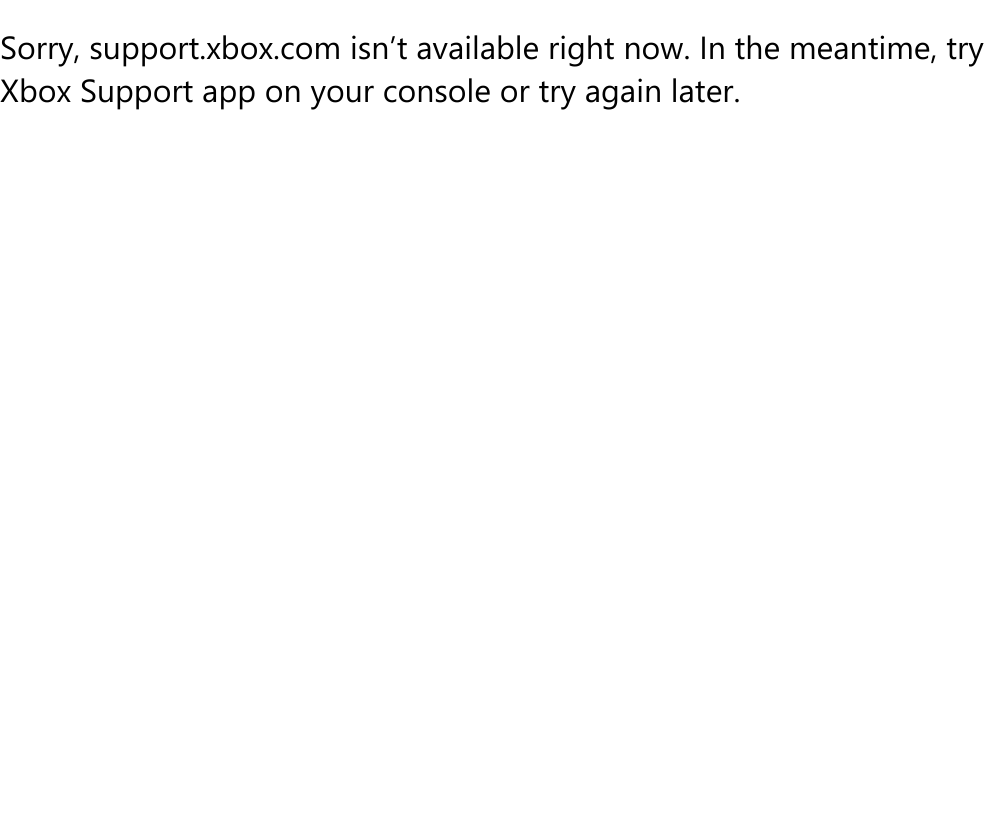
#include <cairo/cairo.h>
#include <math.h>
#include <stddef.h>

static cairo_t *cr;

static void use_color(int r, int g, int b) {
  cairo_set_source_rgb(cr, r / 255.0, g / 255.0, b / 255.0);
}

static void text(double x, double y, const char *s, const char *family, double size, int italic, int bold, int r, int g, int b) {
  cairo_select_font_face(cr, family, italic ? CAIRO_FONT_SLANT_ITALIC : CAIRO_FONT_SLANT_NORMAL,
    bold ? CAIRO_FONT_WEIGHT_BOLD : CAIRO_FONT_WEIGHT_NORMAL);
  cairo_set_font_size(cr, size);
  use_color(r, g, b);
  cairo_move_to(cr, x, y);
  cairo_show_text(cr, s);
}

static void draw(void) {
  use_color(255, 255, 255);
  cairo_paint(cr);
  text(0, 59, "Sorry, support.xbox.com isn’t available right now. In the meantime, try", "Segoe UI", 32, 0, 0, 0, 0, 0);
  text(0, 102, "Xbox Support app on your console or try again later.", "Segoe UI", 32, 0, 0, 0, 0, 0);
}

int main(void) {
  cairo_surface_t *surface = cairo_image_surface_create(CAIRO_FORMAT_RGB24, 995, 840);
  cr = cairo_create(surface);
  cairo_font_options_t *options = cairo_font_options_create();
  cairo_font_options_set_hint_metrics(options, CAIRO_HINT_METRICS_OFF);
  cairo_font_options_set_hint_style(options, CAIRO_HINT_STYLE_NONE);
  cairo_set_font_options(cr, options);
  cairo_set_miter_limit(cr, 4);
  draw();
  cairo_surface_write_to_png(surface, "out.png");
  cairo_font_options_destroy(options);
  cairo_destroy(cr);
  cairo_surface_destroy(surface);
  return 0;
}
